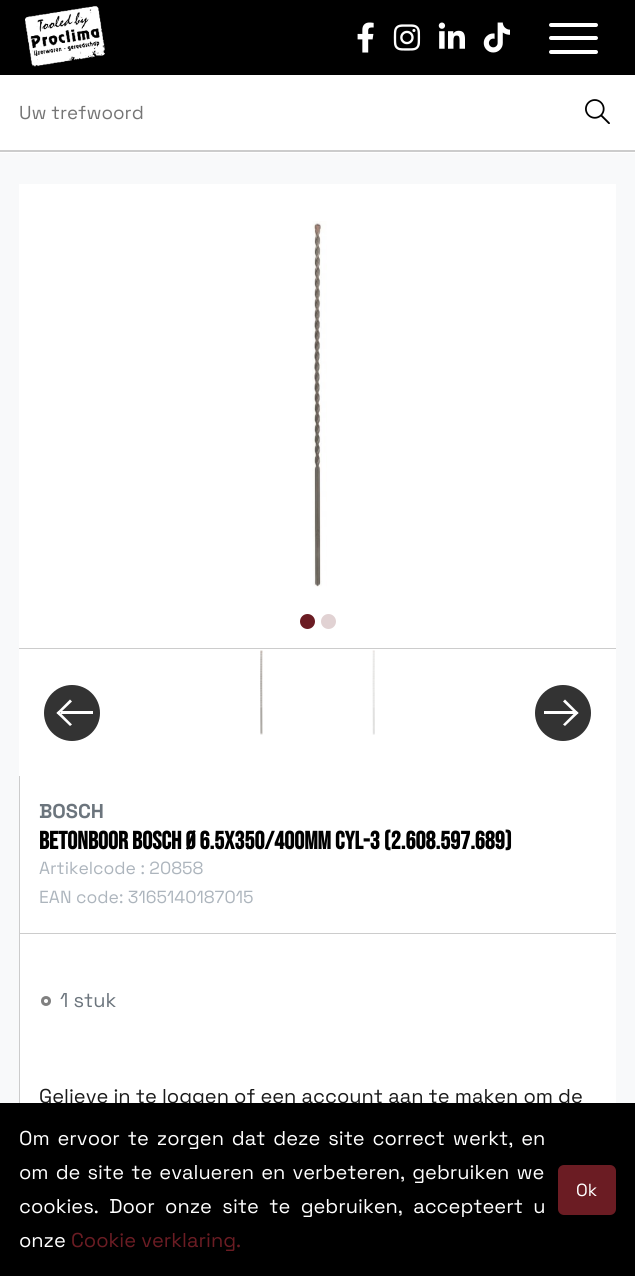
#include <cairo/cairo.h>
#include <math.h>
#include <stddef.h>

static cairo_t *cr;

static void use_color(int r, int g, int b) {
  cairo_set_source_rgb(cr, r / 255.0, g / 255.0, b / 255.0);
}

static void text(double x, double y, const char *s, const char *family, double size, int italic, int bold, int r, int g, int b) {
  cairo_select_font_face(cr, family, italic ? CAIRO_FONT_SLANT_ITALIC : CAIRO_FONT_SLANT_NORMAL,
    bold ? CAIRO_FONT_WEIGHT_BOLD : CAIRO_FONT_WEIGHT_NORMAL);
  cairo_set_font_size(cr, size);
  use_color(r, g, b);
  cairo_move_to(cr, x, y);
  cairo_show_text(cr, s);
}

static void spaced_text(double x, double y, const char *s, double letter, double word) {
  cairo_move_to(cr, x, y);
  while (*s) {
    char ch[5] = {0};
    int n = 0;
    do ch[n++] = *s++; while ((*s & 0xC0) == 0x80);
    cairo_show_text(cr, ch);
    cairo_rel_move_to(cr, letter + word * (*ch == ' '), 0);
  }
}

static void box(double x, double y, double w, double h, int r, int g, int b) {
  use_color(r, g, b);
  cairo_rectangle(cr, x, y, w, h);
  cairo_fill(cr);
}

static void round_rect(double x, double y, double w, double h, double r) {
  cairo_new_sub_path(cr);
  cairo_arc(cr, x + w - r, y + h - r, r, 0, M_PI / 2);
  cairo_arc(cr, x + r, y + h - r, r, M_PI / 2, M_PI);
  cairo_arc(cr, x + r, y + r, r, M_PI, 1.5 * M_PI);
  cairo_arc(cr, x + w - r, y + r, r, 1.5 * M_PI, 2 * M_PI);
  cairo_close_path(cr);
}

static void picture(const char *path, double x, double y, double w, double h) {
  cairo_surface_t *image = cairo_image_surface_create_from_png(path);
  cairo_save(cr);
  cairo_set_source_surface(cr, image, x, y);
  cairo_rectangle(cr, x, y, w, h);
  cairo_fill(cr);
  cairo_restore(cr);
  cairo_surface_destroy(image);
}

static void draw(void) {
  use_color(248, 249, 250);
  cairo_paint(cr);
  box(0, 75, 635, 78, 255, 255, 255);
  box(0, 150, 635, 2, 204, 204, 204);
  box(0, 0, 635, 75, 0, 0, 0);
  picture("img_01.png", 25, 6, 80, 61);
  picture("img_02.png", 357, 22, 17, 31);
  picture("img_03.png", 393, 24, 28, 27);
  picture("img_04.png", 438, 22, 27, 27);
  picture("img_05.png", 483, 22, 27, 31);
  use_color(255, 255, 255);
  round_rect(549, 36, 49, 4, 2);
  cairo_fill(cr);
  round_rect(549, 23, 49, 4, 2);
  cairo_fill(cr);
  round_rect(549, 50, 49, 4, 2);
  cairo_fill(cr);
  picture("img_06.png", 585, 99, 25, 25);
  box(19, 184, 597, 919, 255, 255, 255);
  picture("img_07.png", 312, 221, 15, 366);
  use_color(107, 28, 35);
  cairo_arc(cr, 307.5, 621.5, 7.5, 0, 2 * M_PI);
  cairo_fill(cr);
  use_color(225, 210, 211);
  cairo_arc(cr, 328.5, 621.5, 7.5, 0, 2 * M_PI);
  cairo_fill(cr);
  use_color(51, 51, 51);
  cairo_arc(cr, 72, 713, 28, 0, 2 * M_PI);
  cairo_fill(cr);
  use_color(255, 255, 255);
  cairo_new_path(cr);
  cairo_move_to(cr, 72, 724.5);
  cairo_line_to(cr, 70, 726);
  cairo_line_to(cr, 56.5, 713);
  cairo_line_to(cr, 58.5, 711);
  cairo_close_path(cr);
  cairo_fill(cr);
  cairo_new_path(cr);
  cairo_move_to(cr, 72, 701.5);
  cairo_line_to(cr, 58.5, 714.5);
  cairo_line_to(cr, 56.5, 713);
  cairo_line_to(cr, 70, 699.5);
  cairo_close_path(cr);
  cairo_fill(cr);
  box(61, 711, 32, 3, 255, 255, 255);
  use_color(51, 51, 51);
  cairo_arc(cr, 563, 713, 28, 0, 2 * M_PI);
  cairo_fill(cr);
  use_color(255, 255, 255);
  cairo_new_path(cr);
  cairo_move_to(cr, 563, 701.5);
  cairo_line_to(cr, 565, 699.5);
  cairo_line_to(cr, 578.5, 713);
  cairo_line_to(cr, 576.5, 714.5);
  cairo_close_path(cr);
  cairo_fill(cr);
  cairo_new_path(cr);
  cairo_move_to(cr, 563, 724.5);
  cairo_line_to(cr, 576.5, 711);
  cairo_line_to(cr, 578.5, 713);
  cairo_line_to(cr, 565, 726);
  cairo_close_path(cr);
  cairo_fill(cr);
  box(544, 711, 31, 3, 255, 255, 255);
  box(19, 648, 597, 1, 204, 204, 204);
  picture("img_08.png", 260, 650, 3, 85);
  picture("img_09.png", 372, 650, 3, 85);
  box(19, 776, 1, 327, 204, 204, 204);
  box(20, 933, 596, 1, 204, 204, 204);
  cairo_arc(cr, 46, 1001, 3.5, 0, 2 * M_PI);
  use_color(128, 128, 128);
  cairo_set_line_width(cr, 3);
  cairo_stroke(cr);
  text(19, 119, "Uw trefwoord", "Space Grotesk", 18.75, 0, 0, 117, 117, 117);
  text(39, 818, "BOSCH", "Space Grotesk", 20, 0, 1, 108, 117, 125);
  text(39, 849, "Betonboor Bosch Ø 6.5x350/400mm Cyl-3 (2.608.597.689)", "Bebas Neue", 25, 0, 1, 0, 0, 0);
  text(39, 874, "Artikelcode : 20858", "Space Grotesk", 17.5, 0, 0, 173, 181, 189);
  text(39, 903, "EAN code: 3165140187015", "Space Grotesk", 17.5, 0, 0, 173, 181, 189);
  text(60, 1007, "1 stuk", "Space Grotesk", 20, 0, 0, 108, 117, 125);
  text(39, 1103, "Gelieve in te loggen of een account aan te maken om de", "Space Grotesk", 20, 0, 0, 26, 26, 26);
  box(0, 1103, 635, 173, 0, 0, 0);
  use_color(255, 255, 255);
  spaced_text(19, 1145, "Om ervoor te zorgen dat deze site correct werkt, en", 0, 2.75);
  spaced_text(19, 1179, "om de site te evalueren en verbeteren, gebruiken we", 0, 2);
  spaced_text(19, 1213, "cookies. Door onze site te gebruiken, accepteert u", 0, 5.25);
  text(19, 1247, "onze", "Space Grotesk", 20, 0, 0, 255, 255, 255);
  text(71, 1247, "Cookie verklaring.", "Space Grotesk", 20, 0, 0, 107, 28, 35);
  round_rect(558, 1165, 58, 50, 6);
  cairo_fill(cr);
  text(576, 1196, "Ok", "Space Grotesk", 17.5, 0, 0, 255, 255, 255);
}

int main(void) {
  cairo_surface_t *surface = cairo_image_surface_create(CAIRO_FORMAT_RGB24, 635, 1276);
  cr = cairo_create(surface);
  cairo_font_options_t *options = cairo_font_options_create();
  cairo_font_options_set_hint_metrics(options, CAIRO_HINT_METRICS_OFF);
  cairo_font_options_set_hint_style(options, CAIRO_HINT_STYLE_NONE);
  cairo_set_font_options(cr, options);
  cairo_set_miter_limit(cr, 4);
  draw();
  cairo_surface_write_to_png(surface, "out.png");
  cairo_font_options_destroy(options);
  cairo_destroy(cr);
  cairo_surface_destroy(surface);
  return 0;
}
